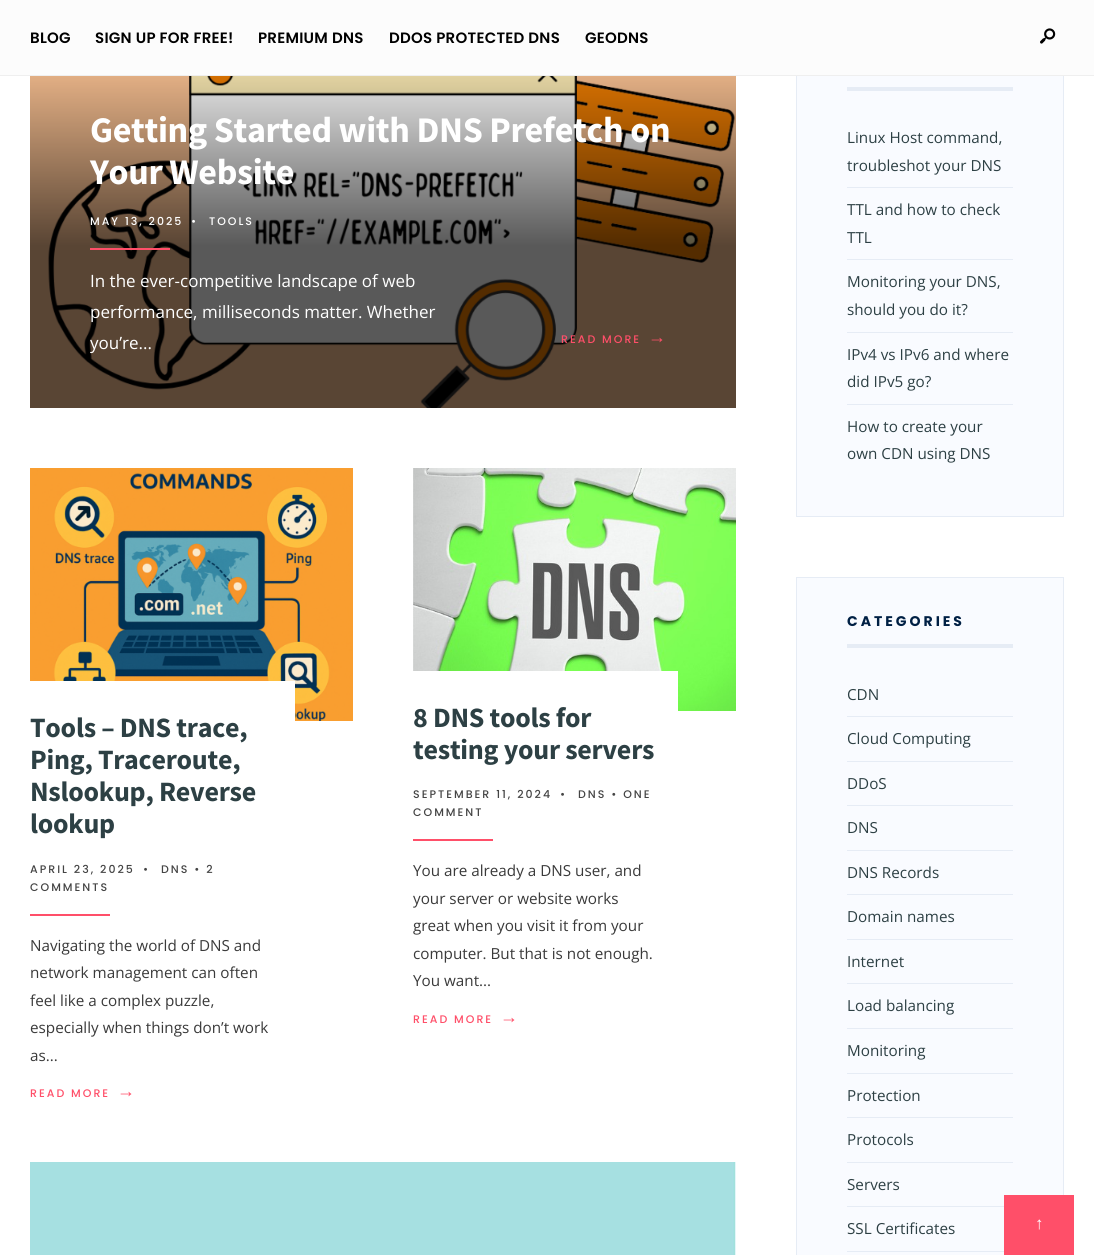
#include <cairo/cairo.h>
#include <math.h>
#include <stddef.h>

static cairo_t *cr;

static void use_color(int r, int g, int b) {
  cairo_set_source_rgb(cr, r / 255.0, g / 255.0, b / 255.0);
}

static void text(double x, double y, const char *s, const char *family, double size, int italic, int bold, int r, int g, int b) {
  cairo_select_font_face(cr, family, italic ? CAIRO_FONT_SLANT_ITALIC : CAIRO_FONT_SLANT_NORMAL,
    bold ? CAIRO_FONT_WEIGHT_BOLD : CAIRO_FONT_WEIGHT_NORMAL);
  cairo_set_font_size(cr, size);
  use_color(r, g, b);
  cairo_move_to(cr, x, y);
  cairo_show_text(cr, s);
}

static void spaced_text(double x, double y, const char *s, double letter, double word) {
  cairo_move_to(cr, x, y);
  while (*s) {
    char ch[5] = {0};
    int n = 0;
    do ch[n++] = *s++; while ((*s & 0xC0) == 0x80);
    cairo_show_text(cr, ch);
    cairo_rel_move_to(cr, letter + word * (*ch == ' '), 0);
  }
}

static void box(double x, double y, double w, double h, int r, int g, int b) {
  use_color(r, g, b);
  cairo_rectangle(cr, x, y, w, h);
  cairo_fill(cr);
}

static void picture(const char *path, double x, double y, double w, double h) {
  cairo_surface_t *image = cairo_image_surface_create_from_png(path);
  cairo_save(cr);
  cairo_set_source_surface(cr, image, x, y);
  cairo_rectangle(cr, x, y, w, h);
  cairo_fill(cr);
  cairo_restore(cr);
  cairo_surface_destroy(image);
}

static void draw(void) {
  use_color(255, 255, 255);
  cairo_paint(cr);
  box(797, 76, 266, 440, 249, 251, 255);
  cairo_rectangle(cr, 796.5, 20.5, 267, 496);
  use_color(230, 236, 245);
  cairo_set_line_width(cr, 1);
  cairo_stroke(cr);
  box(0, 0, 1094, 75, 252, 252, 252);
  box(0, 75, 1094, 1, 239, 239, 239);
  picture("img_01.png", 1040, 28, 16, 16);
  picture("img_02.png", 30, 76, 706, 332);
  box(90, 248, 80, 2, 255, 79, 105);
  picture("img_03.png", 30, 468, 323, 253);
  box(30, 681, 265, 40, 255, 255, 255);
  box(30, 914, 80, 2, 255, 79, 105);
  picture("img_04.png", 413, 468, 323, 243);
  box(413, 671, 265, 40, 255, 255, 255);
  box(413, 839, 80, 2, 255, 79, 105);
  picture("img_05.png", 30, 1162, 706, 93);
  box(847, 87, 166, 4, 230, 236, 245);
  box(847, 187, 166, 1, 230, 236, 245);
  box(847, 259, 166, 1, 230, 236, 245);
  box(847, 332, 166, 1, 230, 236, 245);
  box(847, 404, 166, 1, 230, 236, 245);
  use_color(249, 251, 255);
  cairo_rectangle(cr, 796.5, 577.5, 267, 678);
  cairo_fill_preserve(cr);
  use_color(230, 236, 245);
  cairo_stroke(cr);
  box(847, 644, 166, 4, 230, 236, 245);
  box(847, 716, 166, 1, 230, 236, 245);
  box(847, 761, 166, 1, 230, 236, 245);
  box(847, 805, 166, 1, 230, 236, 245);
  box(847, 850, 166, 1, 230, 236, 245);
  box(847, 894, 166, 1, 230, 236, 245);
  box(847, 939, 166, 1, 230, 236, 245);
  box(847, 983, 166, 1, 230, 236, 245);
  box(847, 1028, 166, 1, 230, 236, 245);
  box(847, 1073, 166, 1, 230, 236, 245);
  box(847, 1117, 166, 1, 230, 236, 245);
  box(847, 1162, 166, 1, 230, 236, 245);
  box(847, 1206, 157, 1, 230, 236, 245);
  box(847, 1251, 157, 1, 230, 236, 245);
  box(1004, 1195, 70, 60, 255, 79, 105);
  cairo_select_font_face(cr, "Poppins SemiBold", CAIRO_FONT_SLANT_NORMAL, CAIRO_FONT_WEIGHT_NORMAL);
  cairo_set_font_size(cr, 15);
  use_color(0, 0, 0);
  spaced_text(30, 43, "BLOG", 0.25, 0);
  spaced_text(95, 43, "SIGN UP FOR FREE!", 0.25, 0);
  spaced_text(258, 43, "PREMIUM DNS", 0.25, 0);
  spaced_text(389, 43, "DDOS PROTECTED DNS", 0.25, 0);
  spaced_text(585, 43, "GEODNS", 0.25, 0);
  cairo_select_font_face(cr, "Source Sans Pro", CAIRO_FONT_SLANT_NORMAL, CAIRO_FONT_WEIGHT_BOLD);
  cairo_set_font_size(cr, 36.1);
  use_color(255, 255, 255);
  spaced_text(90, 142, "Getting Started with DNS Prefetch on", -0.35, 0);
  spaced_text(90, 184, "Your Website", -0.35, 0);
  cairo_select_font_face(cr, "Poppins Medium", CAIRO_FONT_SLANT_NORMAL, CAIRO_FONT_WEIGHT_NORMAL);
  cairo_set_font_size(cr, 11);
  spaced_text(90, 225, "MAY 13, 2025", 2, 0);
  spaced_text(191, 225, "•", 2, 0);
  spaced_text(209, 225, "TOOLS", 2, 0);
  text(90, 287, "In the ever-competitive landscape of web", "Open Sans", 17, 0, 0, 255, 255, 255);
  text(90, 318, "performance, milliseconds matter. Whether", "Open Sans", 17, 0, 0, 255, 255, 255);
  text(90, 349, "you’re...", "Open Sans", 17, 0, 0, 255, 255, 255);
  cairo_select_font_face(cr, "Poppins Medium", CAIRO_FONT_SLANT_NORMAL, CAIRO_FONT_WEIGHT_NORMAL);
  cairo_set_font_size(cr, 11);
  use_color(255, 79, 105);
  spaced_text(561, 343, "READ MORE", 2, 0);
  cairo_select_font_face(cr, "Liberation Serif", CAIRO_FONT_SLANT_NORMAL, CAIRO_FONT_WEIGHT_NORMAL);
  cairo_set_font_size(cr, 18);
  spaced_text(648, 343, "→", 2, 0);
  cairo_select_font_face(cr, "Source Sans Pro", CAIRO_FONT_SLANT_NORMAL, CAIRO_FONT_WEIGHT_BOLD);
  cairo_set_font_size(cr, 28);
  use_color(45, 64, 68);
  spaced_text(30, 737, "Тools – DNS trace,", -0.25, 0);
  spaced_text(30, 769, "Ping, Traceroute,", -0.25, 0);
  spaced_text(30, 801, "Nslookup, Reverse", -0.25, 0);
  spaced_text(30, 833, "lookup", -0.25, 0);
  cairo_select_font_face(cr, "Poppins Medium", CAIRO_FONT_SLANT_NORMAL, CAIRO_FONT_WEIGHT_NORMAL);
  cairo_set_font_size(cr, 11);
  use_color(68, 68, 68);
  spaced_text(30, 873, "APRIL 23, 2025", 2, 0);
  spaced_text(143, 873, "•", 2, 0);
  spaced_text(161, 873, "DNS • 2", 2, 0);
  spaced_text(30, 891, "COMMENTS", 2, 0);
  text(30, 951, "Navigating the world of DNS and", "Open Sans", 15.25, 0, 0, 58, 58, 58);
  text(30, 978, "network management can often", "Open Sans", 15.25, 0, 0, 58, 58, 58);
  text(30, 1006, "feel like a complex puzzle,", "Open Sans", 15.25, 0, 0, 58, 58, 58);
  text(30, 1033, "especially when things don’t work", "Open Sans", 15.25, 0, 0, 58, 58, 58);
  text(30, 1061, "as...", "Open Sans", 15.25, 0, 0, 58, 58, 58);
  cairo_select_font_face(cr, "Poppins Medium", CAIRO_FONT_SLANT_NORMAL, CAIRO_FONT_WEIGHT_NORMAL);
  cairo_set_font_size(cr, 11);
  use_color(255, 79, 105);
  spaced_text(30, 1097, "READ MORE", 2, 0);
  cairo_select_font_face(cr, "Liberation Serif", CAIRO_FONT_SLANT_NORMAL, CAIRO_FONT_WEIGHT_NORMAL);
  cairo_set_font_size(cr, 18);
  spaced_text(117, 1097, "→", 2, 0);
  cairo_select_font_face(cr, "Source Sans Pro", CAIRO_FONT_SLANT_NORMAL, CAIRO_FONT_WEIGHT_BOLD);
  cairo_set_font_size(cr, 28);
  use_color(45, 64, 68);
  spaced_text(413, 727, "8 DNS tools for", -0.25, 0);
  spaced_text(413, 759, "testing your servers", -0.25, 0);
  cairo_select_font_face(cr, "Poppins Medium", CAIRO_FONT_SLANT_NORMAL, CAIRO_FONT_WEIGHT_NORMAL);
  cairo_set_font_size(cr, 11);
  use_color(68, 68, 68);
  spaced_text(413, 798, "SEPTEMBER 11, 2024", 2, 0);
  spaced_text(560, 798, "•", 2, 0);
  spaced_text(578, 798, "DNS • ONE", 2, 0);
  spaced_text(413, 816, "COMMENT", 2, 0);
  text(413, 876, "You are already a DNS user, and", "Open Sans", 15.25, 0, 0, 58, 58, 58);
  text(413, 904, "your server or website works", "Open Sans", 15.25, 0, 0, 58, 58, 58);
  text(413, 931, "great when you visit it from your", "Open Sans", 15.25, 0, 0, 58, 58, 58);
  text(413, 959, "computer. But that is not enough.", "Open Sans", 15.25, 0, 0, 58, 58, 58);
  text(413, 986, "You want...", "Open Sans", 15.25, 0, 0, 58, 58, 58);
  cairo_select_font_face(cr, "Poppins Medium", CAIRO_FONT_SLANT_NORMAL, CAIRO_FONT_WEIGHT_NORMAL);
  cairo_set_font_size(cr, 11);
  use_color(255, 79, 105);
  spaced_text(413, 1023, "READ MORE", 2, 0);
  cairo_select_font_face(cr, "Liberation Serif", CAIRO_FONT_SLANT_NORMAL, CAIRO_FONT_WEIGHT_NORMAL);
  cairo_set_font_size(cr, 18);
  spaced_text(500, 1023, "→", 2, 0);
  text(847, 143, "Linux Host command,", "Open Sans", 15.25, 0, 0, 45, 64, 68);
  text(847, 171, "troubleshot your DNS", "Open Sans", 15.25, 0, 0, 45, 64, 68);
  text(847, 215, "TTL and how to check", "Open Sans", 15.25, 0, 0, 45, 64, 68);
  text(847, 243, "TTL", "Open Sans", 15.25, 0, 0, 45, 64, 68);
  text(847, 287, "Monitoring your DNS,", "Open Sans", 15.25, 0, 0, 45, 64, 68);
  text(847, 315, "should you do it?", "Open Sans", 15.25, 0, 0, 45, 64, 68);
  text(847, 360, "IPv4 vs IPv6 and where", "Open Sans", 15.25, 0, 0, 45, 64, 68);
  text(847, 387, "did IPv5 go?", "Open Sans", 15.25, 0, 0, 45, 64, 68);
  text(847, 432, "How to create your", "Open Sans", 15.25, 0, 0, 45, 64, 68);
  text(847, 459, "own CDN using DNS", "Open Sans", 15.25, 0, 0, 45, 64, 68);
  cairo_select_font_face(cr, "Poppins", CAIRO_FONT_SLANT_NORMAL, CAIRO_FONT_WEIGHT_BOLD);
  cairo_set_font_size(cr, 14);
  use_color(0, 32, 68);
  spaced_text(847, 626, "CATEGORIES", 3, 0);
  text(847, 700, "CDN", "Open Sans", 15.25, 0, 0, 45, 64, 68);
  text(847, 744, "Cloud Computing", "Open Sans", 15.25, 0, 0, 45, 64, 68);
  text(847, 789, "DDoS", "Open Sans", 15.25, 0, 0, 45, 64, 68);
  text(847, 833, "DNS", "Open Sans", 15.25, 0, 0, 45, 64, 68);
  text(847, 878, "DNS Records", "Open Sans", 15.25, 0, 0, 45, 64, 68);
  text(847, 922, "Domain names", "Open Sans", 15.25, 0, 0, 45, 64, 68);
  text(847, 967, "Internet", "Open Sans", 15.25, 0, 0, 45, 64, 68);
  text(847, 1011, "Load balancing", "Open Sans", 15.25, 0, 0, 45, 64, 68);
  text(847, 1056, "Monitoring", "Open Sans", 15.25, 0, 0, 45, 64, 68);
  text(847, 1101, "Protection", "Open Sans", 15.25, 0, 0, 45, 64, 68);
  text(847, 1145, "Protocols", "Open Sans", 15.25, 0, 0, 45, 64, 68);
  text(847, 1190, "Servers", "Open Sans", 15.25, 0, 0, 45, 64, 68);
  text(847, 1234, "SSL Certificates", "Open Sans", 15.25, 0, 0, 45, 64, 68);
  text(1035, 1229, "↑", "Liberation Serif", 17, 0, 0, 255, 255, 255);
}

int main(void) {
  cairo_surface_t *surface = cairo_image_surface_create(CAIRO_FORMAT_RGB24, 1094, 1255);
  cr = cairo_create(surface);
  cairo_font_options_t *options = cairo_font_options_create();
  cairo_font_options_set_hint_metrics(options, CAIRO_HINT_METRICS_OFF);
  cairo_font_options_set_hint_style(options, CAIRO_HINT_STYLE_NONE);
  cairo_set_font_options(cr, options);
  cairo_set_miter_limit(cr, 4);
  draw();
  cairo_surface_write_to_png(surface, "out.png");
  cairo_font_options_destroy(options);
  cairo_destroy(cr);
  cairo_surface_destroy(surface);
  return 0;
}
